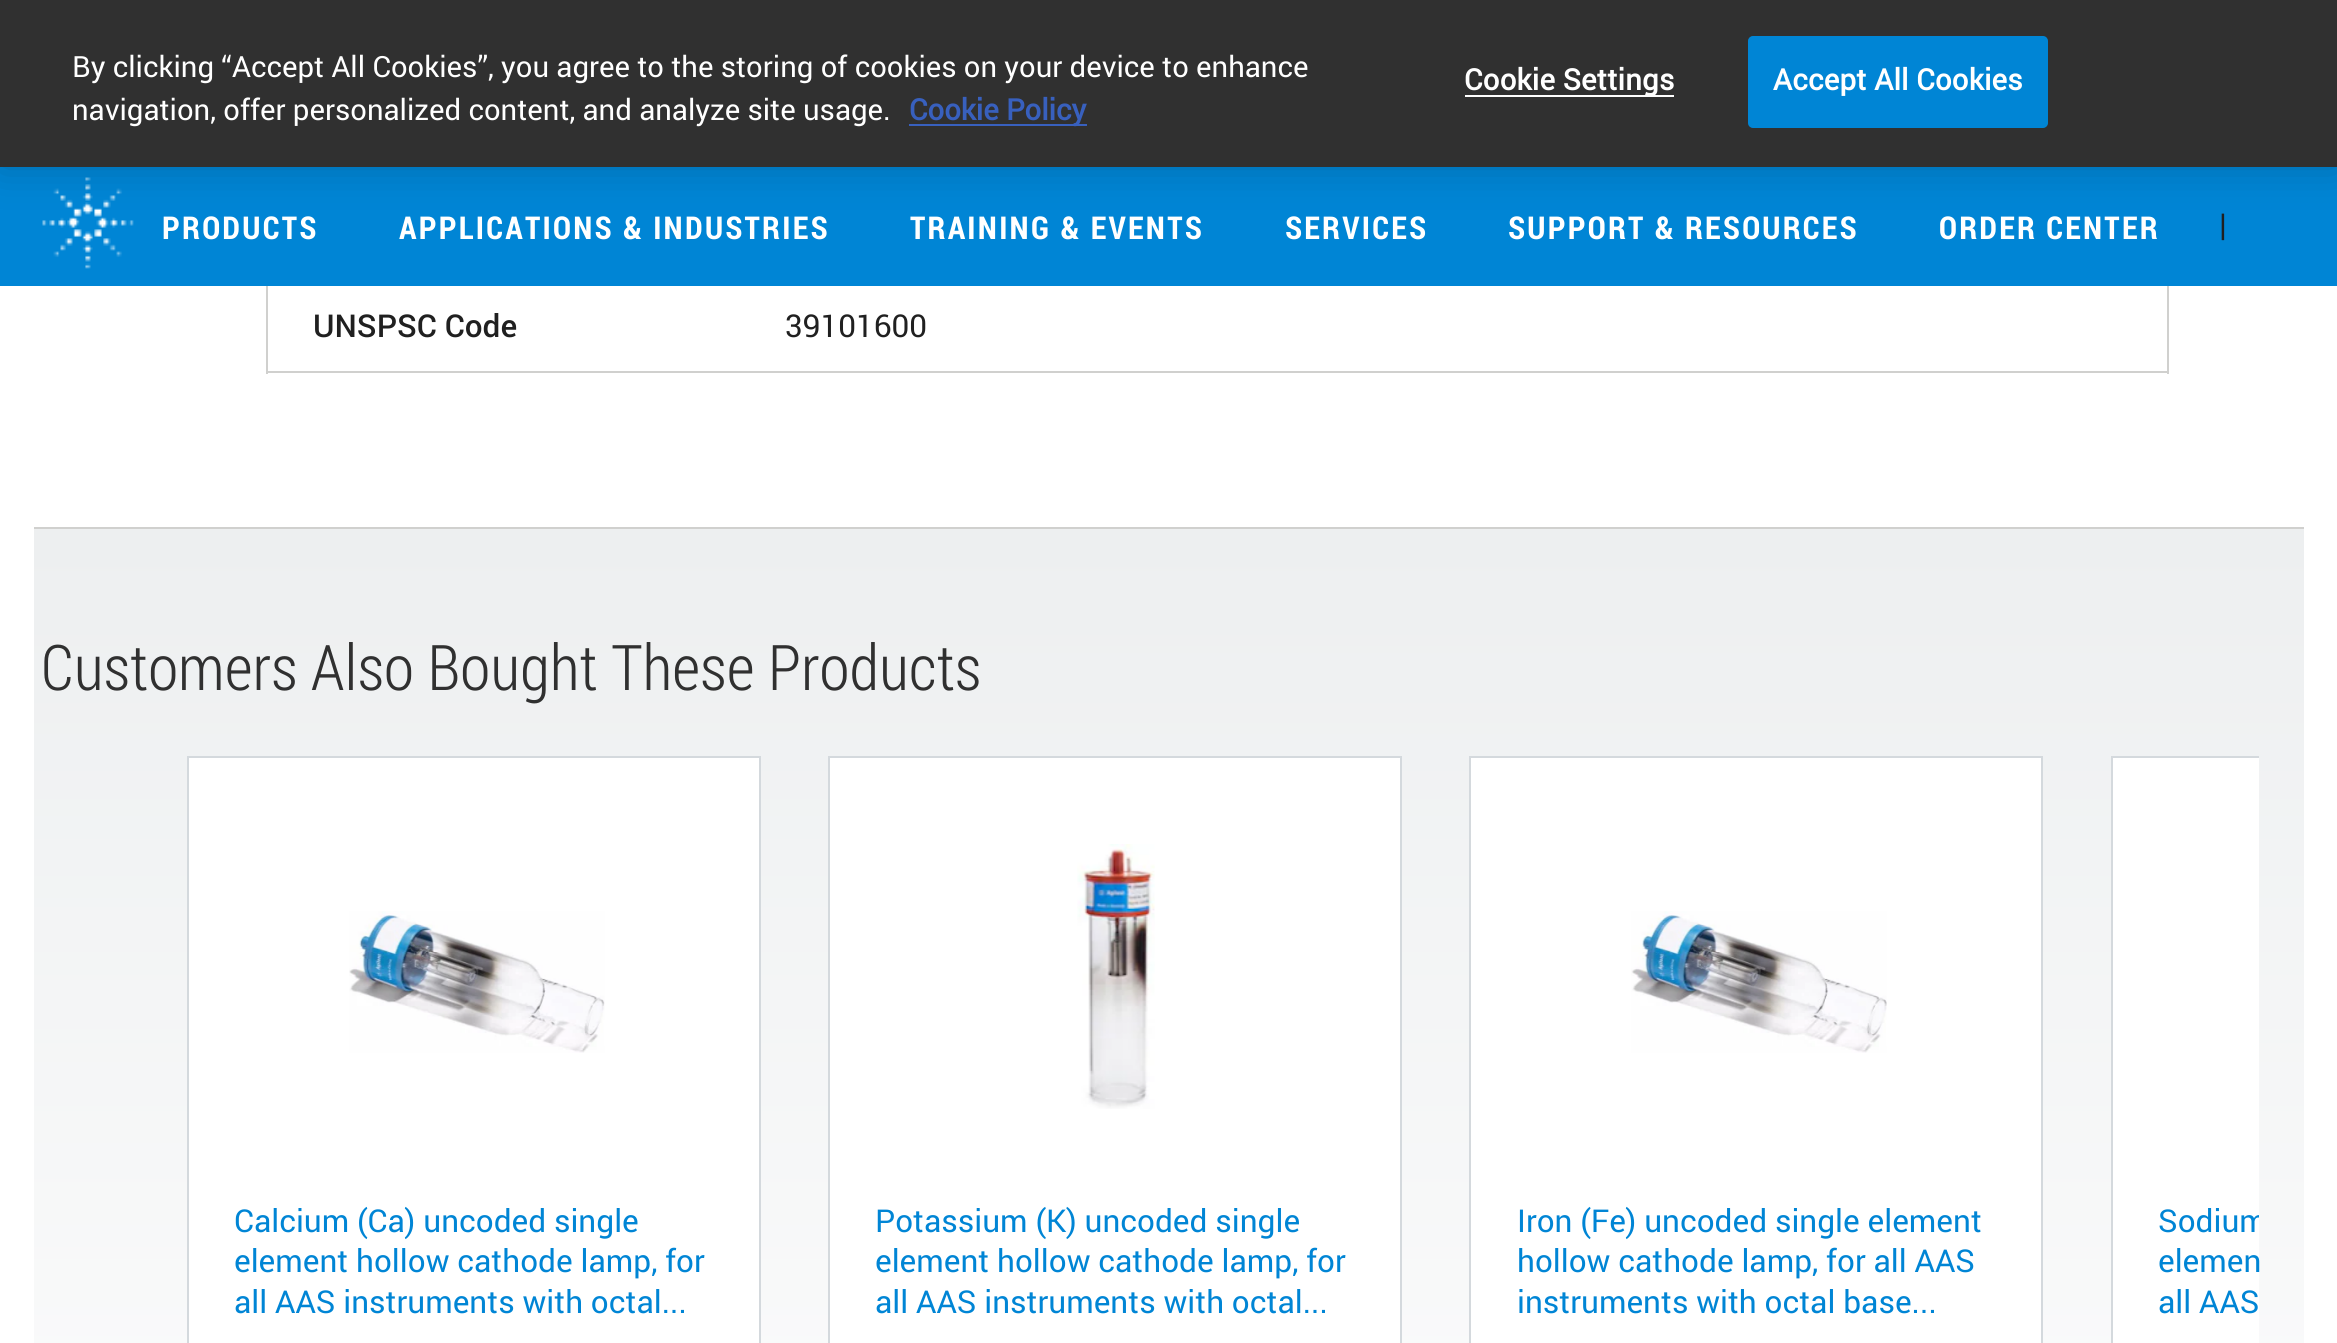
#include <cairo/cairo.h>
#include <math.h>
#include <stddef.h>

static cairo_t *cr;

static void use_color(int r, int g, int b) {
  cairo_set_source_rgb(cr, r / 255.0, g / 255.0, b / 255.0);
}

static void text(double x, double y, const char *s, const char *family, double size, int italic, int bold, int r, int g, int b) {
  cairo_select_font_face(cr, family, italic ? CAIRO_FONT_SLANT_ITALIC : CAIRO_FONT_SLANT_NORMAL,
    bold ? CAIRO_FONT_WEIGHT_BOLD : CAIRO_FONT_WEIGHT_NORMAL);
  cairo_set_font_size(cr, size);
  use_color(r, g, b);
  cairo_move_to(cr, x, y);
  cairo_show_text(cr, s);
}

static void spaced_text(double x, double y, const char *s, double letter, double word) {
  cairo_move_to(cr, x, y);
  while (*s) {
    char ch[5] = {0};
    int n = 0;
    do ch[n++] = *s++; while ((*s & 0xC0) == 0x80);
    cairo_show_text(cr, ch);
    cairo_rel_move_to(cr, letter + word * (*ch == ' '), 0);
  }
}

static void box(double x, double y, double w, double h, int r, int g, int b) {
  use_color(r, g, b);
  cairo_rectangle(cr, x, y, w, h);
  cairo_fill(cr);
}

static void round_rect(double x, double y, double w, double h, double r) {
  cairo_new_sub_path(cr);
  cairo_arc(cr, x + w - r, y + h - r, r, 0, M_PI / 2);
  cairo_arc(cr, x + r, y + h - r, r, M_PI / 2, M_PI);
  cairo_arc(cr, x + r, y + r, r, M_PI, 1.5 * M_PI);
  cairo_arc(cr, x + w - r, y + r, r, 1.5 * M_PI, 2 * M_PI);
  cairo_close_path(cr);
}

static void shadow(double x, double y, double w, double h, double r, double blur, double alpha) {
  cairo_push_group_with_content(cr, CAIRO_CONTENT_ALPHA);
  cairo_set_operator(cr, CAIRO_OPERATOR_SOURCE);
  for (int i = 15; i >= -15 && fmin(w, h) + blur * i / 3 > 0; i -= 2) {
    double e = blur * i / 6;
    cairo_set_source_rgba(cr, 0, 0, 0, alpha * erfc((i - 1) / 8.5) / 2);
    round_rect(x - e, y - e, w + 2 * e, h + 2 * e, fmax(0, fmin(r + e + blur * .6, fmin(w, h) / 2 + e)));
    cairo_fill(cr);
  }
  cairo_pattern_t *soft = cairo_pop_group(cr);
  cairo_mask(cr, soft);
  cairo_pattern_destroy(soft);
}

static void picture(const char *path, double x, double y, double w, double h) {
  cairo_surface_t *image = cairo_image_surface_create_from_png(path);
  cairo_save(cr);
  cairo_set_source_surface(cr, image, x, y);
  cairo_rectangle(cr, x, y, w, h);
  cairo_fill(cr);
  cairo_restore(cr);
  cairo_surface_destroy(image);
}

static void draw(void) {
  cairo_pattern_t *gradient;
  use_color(255, 255, 255);
  cairo_paint(cr);
  box(0, 167, 2337, 119, 0, 133, 213);
  picture("img_01.png", 42, 177, 92, 92);
  use_color(0, 0, 0);
  shadow(0, 0, 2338, 167, 0, 20, 0.2);
  box(0, 0, 2337, 167, 48, 48, 48);
  box(909, 124, 178, 2, 56, 96, 190);
  box(1465, 95, 209, 2, 255, 255, 255);
  use_color(0, 133, 213);
  round_rect(1749, 37, 298, 90, 4);
  cairo_fill_preserve(cr);
  cairo_stroke(cr);
  box(2167, 286, 2, 88, 208, 208, 206);
  box(266, 371, 1903, 2, 208, 208, 206);
  box(266, 286, 2, 88, 208, 208, 206);
  gradient = cairo_pattern_create_linear(1169, 526, 1169, 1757);
  cairo_pattern_add_color_stop_rgba(gradient, 0, 0.929, 0.937, 0.941, 1);
  cairo_pattern_add_color_stop_rgba(gradient, 1, 1, 1, 1, 1);
  cairo_set_source(cr, gradient);
  cairo_pattern_destroy(gradient);
  cairo_rectangle(cr, 34, 529, 2270, 814);
  cairo_fill(cr);
  box(34, 527, 2270, 2, 208, 208, 206);
  use_color(255, 255, 255);
  cairo_rectangle(cr, 188, 757, 572, 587);
  cairo_fill_preserve(cr);
  use_color(212, 217, 221);
  cairo_stroke(cr);
  picture("img_02.png", 349, 911, 256, 142);
  use_color(255, 255, 255);
  cairo_rectangle(cr, 829, 757, 572, 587);
  cairo_fill_preserve(cr);
  use_color(212, 217, 221);
  cairo_stroke(cr);
  picture("img_03.png", 1077, 844, 78, 265);
  use_color(255, 255, 255);
  cairo_rectangle(cr, 1470, 757, 572, 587);
  cairo_fill_preserve(cr);
  use_color(212, 217, 221);
  cairo_stroke(cr);
  picture("img_04.png", 1631, 911, 256, 142);
  box(2113, 758, 146, 585, 255, 255, 255);
  cairo_save(cr);
  cairo_rectangle(cr, 187, 756, 2072, 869);
  cairo_clip(cr);
  cairo_rectangle(cr, 2112, 757, 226, 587);
  use_color(212, 217, 221);
  cairo_stroke(cr);
  cairo_restore(cr);
  text(72, 77, "By clicking “Accept All Cookies”, you agree to the storing of cookies on your device to enhance", "Roboto", 29.25, 0, 0, 255, 255, 255);
  text(72, 120, "navigation, offer personalized content, and analyze site usage.", "Roboto", 29.25, 0, 0, 255, 255, 255);
  text(909, 120, "Cookie Policy", "Roboto", 29.25, 0, 1, 56, 96, 190);
  use_color(255, 255, 255);
  spaced_text(1464, 90, "Cookie Settings", 0.25, 0);
  spaced_text(1773, 90, "Accept All Cookies", 0.25, 0);
  cairo_select_font_face(cr, "Roboto Condensed", CAIRO_FONT_SLANT_NORMAL, CAIRO_FONT_WEIGHT_BOLD);
  cairo_set_font_size(cr, 31.5);
  spaced_text(162, 239, "PRODUCTS", 2.25, 0);
  spaced_text(399, 239, "APPLICATIONS & INDUSTRIES", 2.25, 0);
  spaced_text(910, 239, "TRAINING & EVENTS", 2.25, 0);
  spaced_text(1285, 239, "SERVICES", 2.25, 0);
  spaced_text(1508, 239, "SUPPORT & RESOURCES", 2.25, 0);
  spaced_text(1939, 239, "ORDER CENTER", 2.25, 0);
  text(2219, 236, "|", "Roboto", 31.5, 0, 0, 32, 32, 32);
  text(313, 337, "UNSPSC Code", "Roboto Medium", 31.5, 0, 0, 32, 32, 32);
  text(785, 337, "39101600", "Roboto", 31.5, 0, 0, 32, 32, 32);
  text(41, 690, "Customers Also Bought These Products", "Roboto Condensed Light", 63, 0, 0, 48, 48, 48);
  text(234, 1232, "Calcium (Ca) uncoded single", "Roboto", 31.5, 0, 0, 0, 133, 213);
  text(234, 1272, "element hollow cathode lamp, for", "Roboto", 31.5, 0, 0, 0, 133, 213);
  text(234, 1313, "all AAS instruments with octal...", "Roboto", 31.5, 0, 0, 0, 133, 213);
  text(875, 1232, "Potassium (K) uncoded single", "Roboto", 31.5, 0, 0, 0, 133, 213);
  text(875, 1272, "element hollow cathode lamp, for", "Roboto", 31.5, 0, 0, 0, 133, 213);
  text(875, 1313, "all AAS instruments with octal...", "Roboto", 31.5, 0, 0, 0, 133, 213);
  text(1517, 1232, "Iron (Fe) uncoded single element", "Roboto", 31.5, 0, 0, 0, 133, 213);
  text(1517, 1272, "hollow cathode lamp, for all AAS", "Roboto", 31.5, 0, 0, 0, 133, 213);
  text(1517, 1313, "instruments with octal base...", "Roboto", 31.5, 0, 0, 0, 133, 213);
  cairo_save(cr);
  cairo_rectangle(cr, 187, 756, 2072, 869);
  cairo_clip(cr);
  text(2158, 1232, "Sodium", "Roboto", 31.5, 0, 0, 0, 133, 213);
  cairo_restore(cr);
  text(2158, 1272, "elemen", "Roboto", 31.5, 0, 0, 0, 133, 213);
  text(2158, 1313, "all AAS", "Roboto", 31.5, 0, 0, 0, 133, 213);
}

int main(void) {
  cairo_surface_t *surface = cairo_image_surface_create(CAIRO_FORMAT_RGB24, 2337, 1343);
  cr = cairo_create(surface);
  cairo_font_options_t *options = cairo_font_options_create();
  cairo_font_options_set_hint_metrics(options, CAIRO_HINT_METRICS_OFF);
  cairo_font_options_set_hint_style(options, CAIRO_HINT_STYLE_NONE);
  cairo_set_font_options(cr, options);
  cairo_set_miter_limit(cr, 4);
  draw();
  cairo_surface_write_to_png(surface, "out.png");
  cairo_font_options_destroy(options);
  cairo_destroy(cr);
  cairo_surface_destroy(surface);
  return 0;
}
